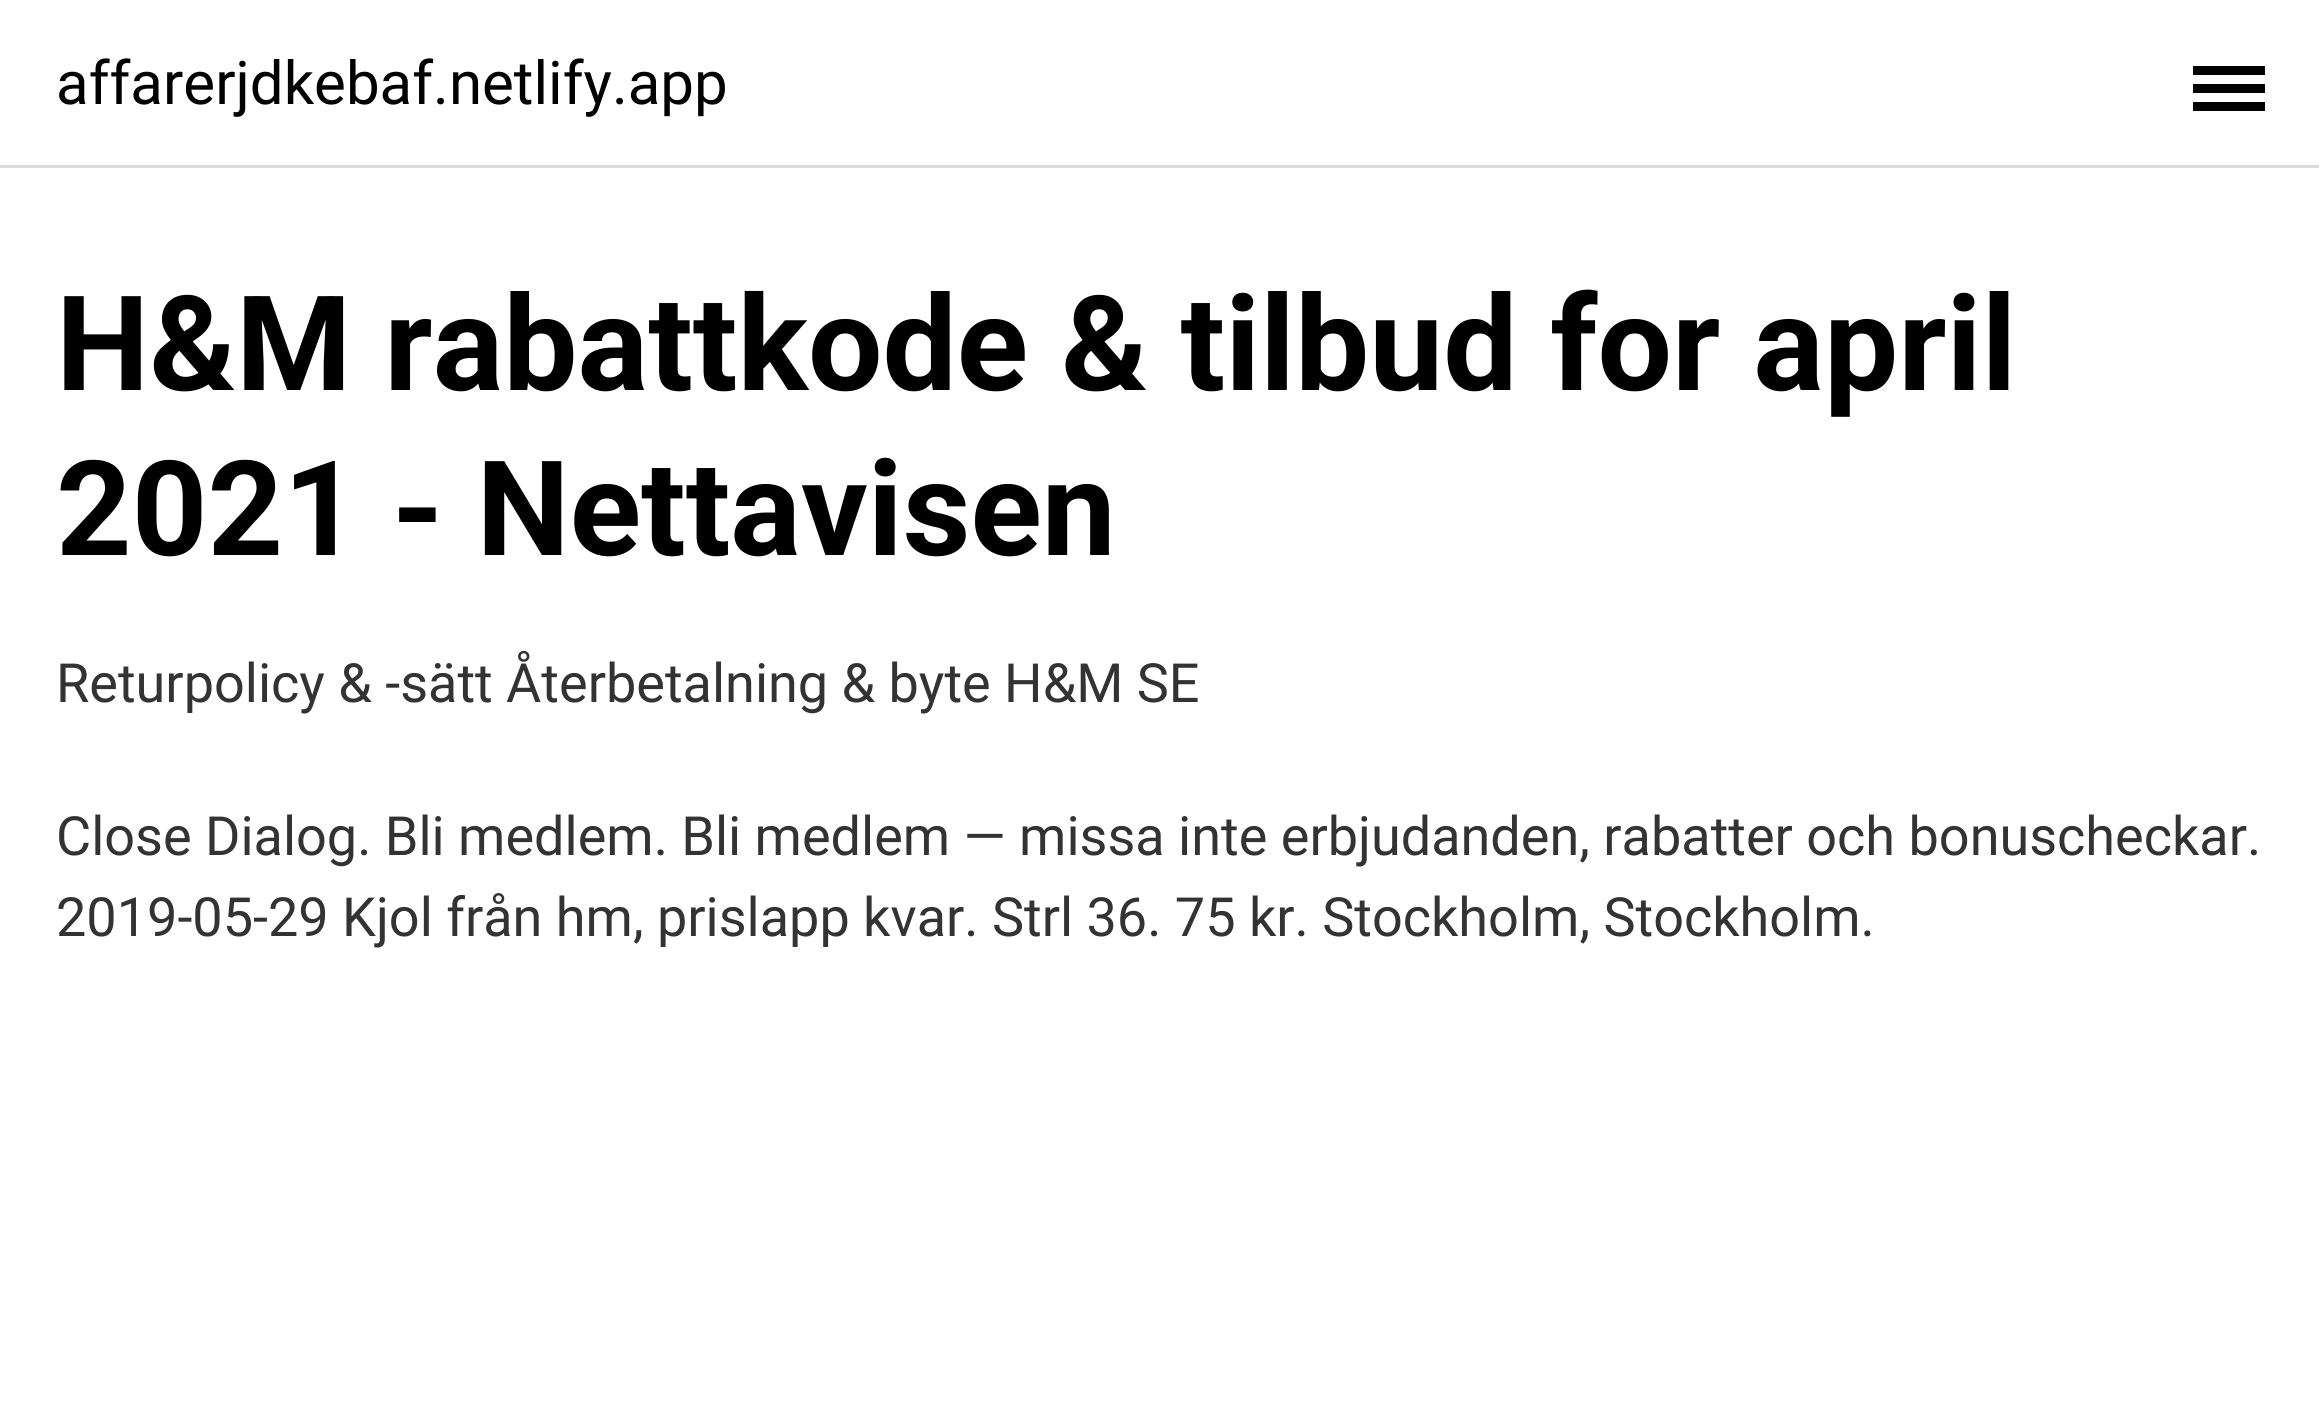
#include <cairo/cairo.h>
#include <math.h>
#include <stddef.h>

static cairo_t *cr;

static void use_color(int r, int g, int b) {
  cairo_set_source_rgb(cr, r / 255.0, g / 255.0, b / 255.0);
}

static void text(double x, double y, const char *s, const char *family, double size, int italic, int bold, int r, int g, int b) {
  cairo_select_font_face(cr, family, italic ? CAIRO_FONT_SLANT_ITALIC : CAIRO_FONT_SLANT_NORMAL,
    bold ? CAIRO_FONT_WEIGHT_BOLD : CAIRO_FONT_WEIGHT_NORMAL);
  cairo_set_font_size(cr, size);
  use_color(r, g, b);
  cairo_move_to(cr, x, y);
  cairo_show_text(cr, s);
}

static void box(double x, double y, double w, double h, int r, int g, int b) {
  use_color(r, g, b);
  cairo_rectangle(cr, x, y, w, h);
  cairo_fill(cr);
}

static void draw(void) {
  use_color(255, 255, 255);
  cairo_paint(cr);
  box(0, 165, 2319, 3, 219, 219, 219);
  box(2193, 84, 72, 9, 0, 0, 0);
  box(2193, 66, 72, 9, 0, 0, 0);
  box(2193, 102, 72, 9, 0, 0, 0);
  text(56, 104, "affarerjdkebaf.netlify.app", "Roboto", 60, 0, 0, 0, 0, 0);
  text(56, 390, "H&M rabattkode & tilbud for april", "Roboto", 132, 0, 1, 0, 0, 0);
  text(56, 555, "2021 - Nettavisen", "Roboto", 132, 0, 1, 0, 0, 0);
  text(56, 702, "Returpolicy & -sätt Återbetalning & byte H&M SE", "Roboto", 54, 0, 0, 51, 51, 51);
  text(56, 855, "Close Dialog. Bli medlem. Bli medlem — missa inte erbjudanden, rabatter och bonuscheckar.", "Roboto", 54, 0, 0, 51, 51, 51);
  text(56, 936, "2019-05-29 Kjol från hm, prislapp kvar. Strl 36. 75 kr. Stockholm, Stockholm.", "Roboto", 54, 0, 0, 51, 51, 51);
}

int main(void) {
  cairo_surface_t *surface = cairo_image_surface_create(CAIRO_FORMAT_RGB24, 2319, 1426);
  cr = cairo_create(surface);
  cairo_font_options_t *options = cairo_font_options_create();
  cairo_font_options_set_hint_metrics(options, CAIRO_HINT_METRICS_OFF);
  cairo_font_options_set_hint_style(options, CAIRO_HINT_STYLE_NONE);
  cairo_set_font_options(cr, options);
  cairo_set_miter_limit(cr, 4);
  draw();
  cairo_surface_write_to_png(surface, "out.png");
  cairo_font_options_destroy(options);
  cairo_destroy(cr);
  cairo_surface_destroy(surface);
  return 0;
}
